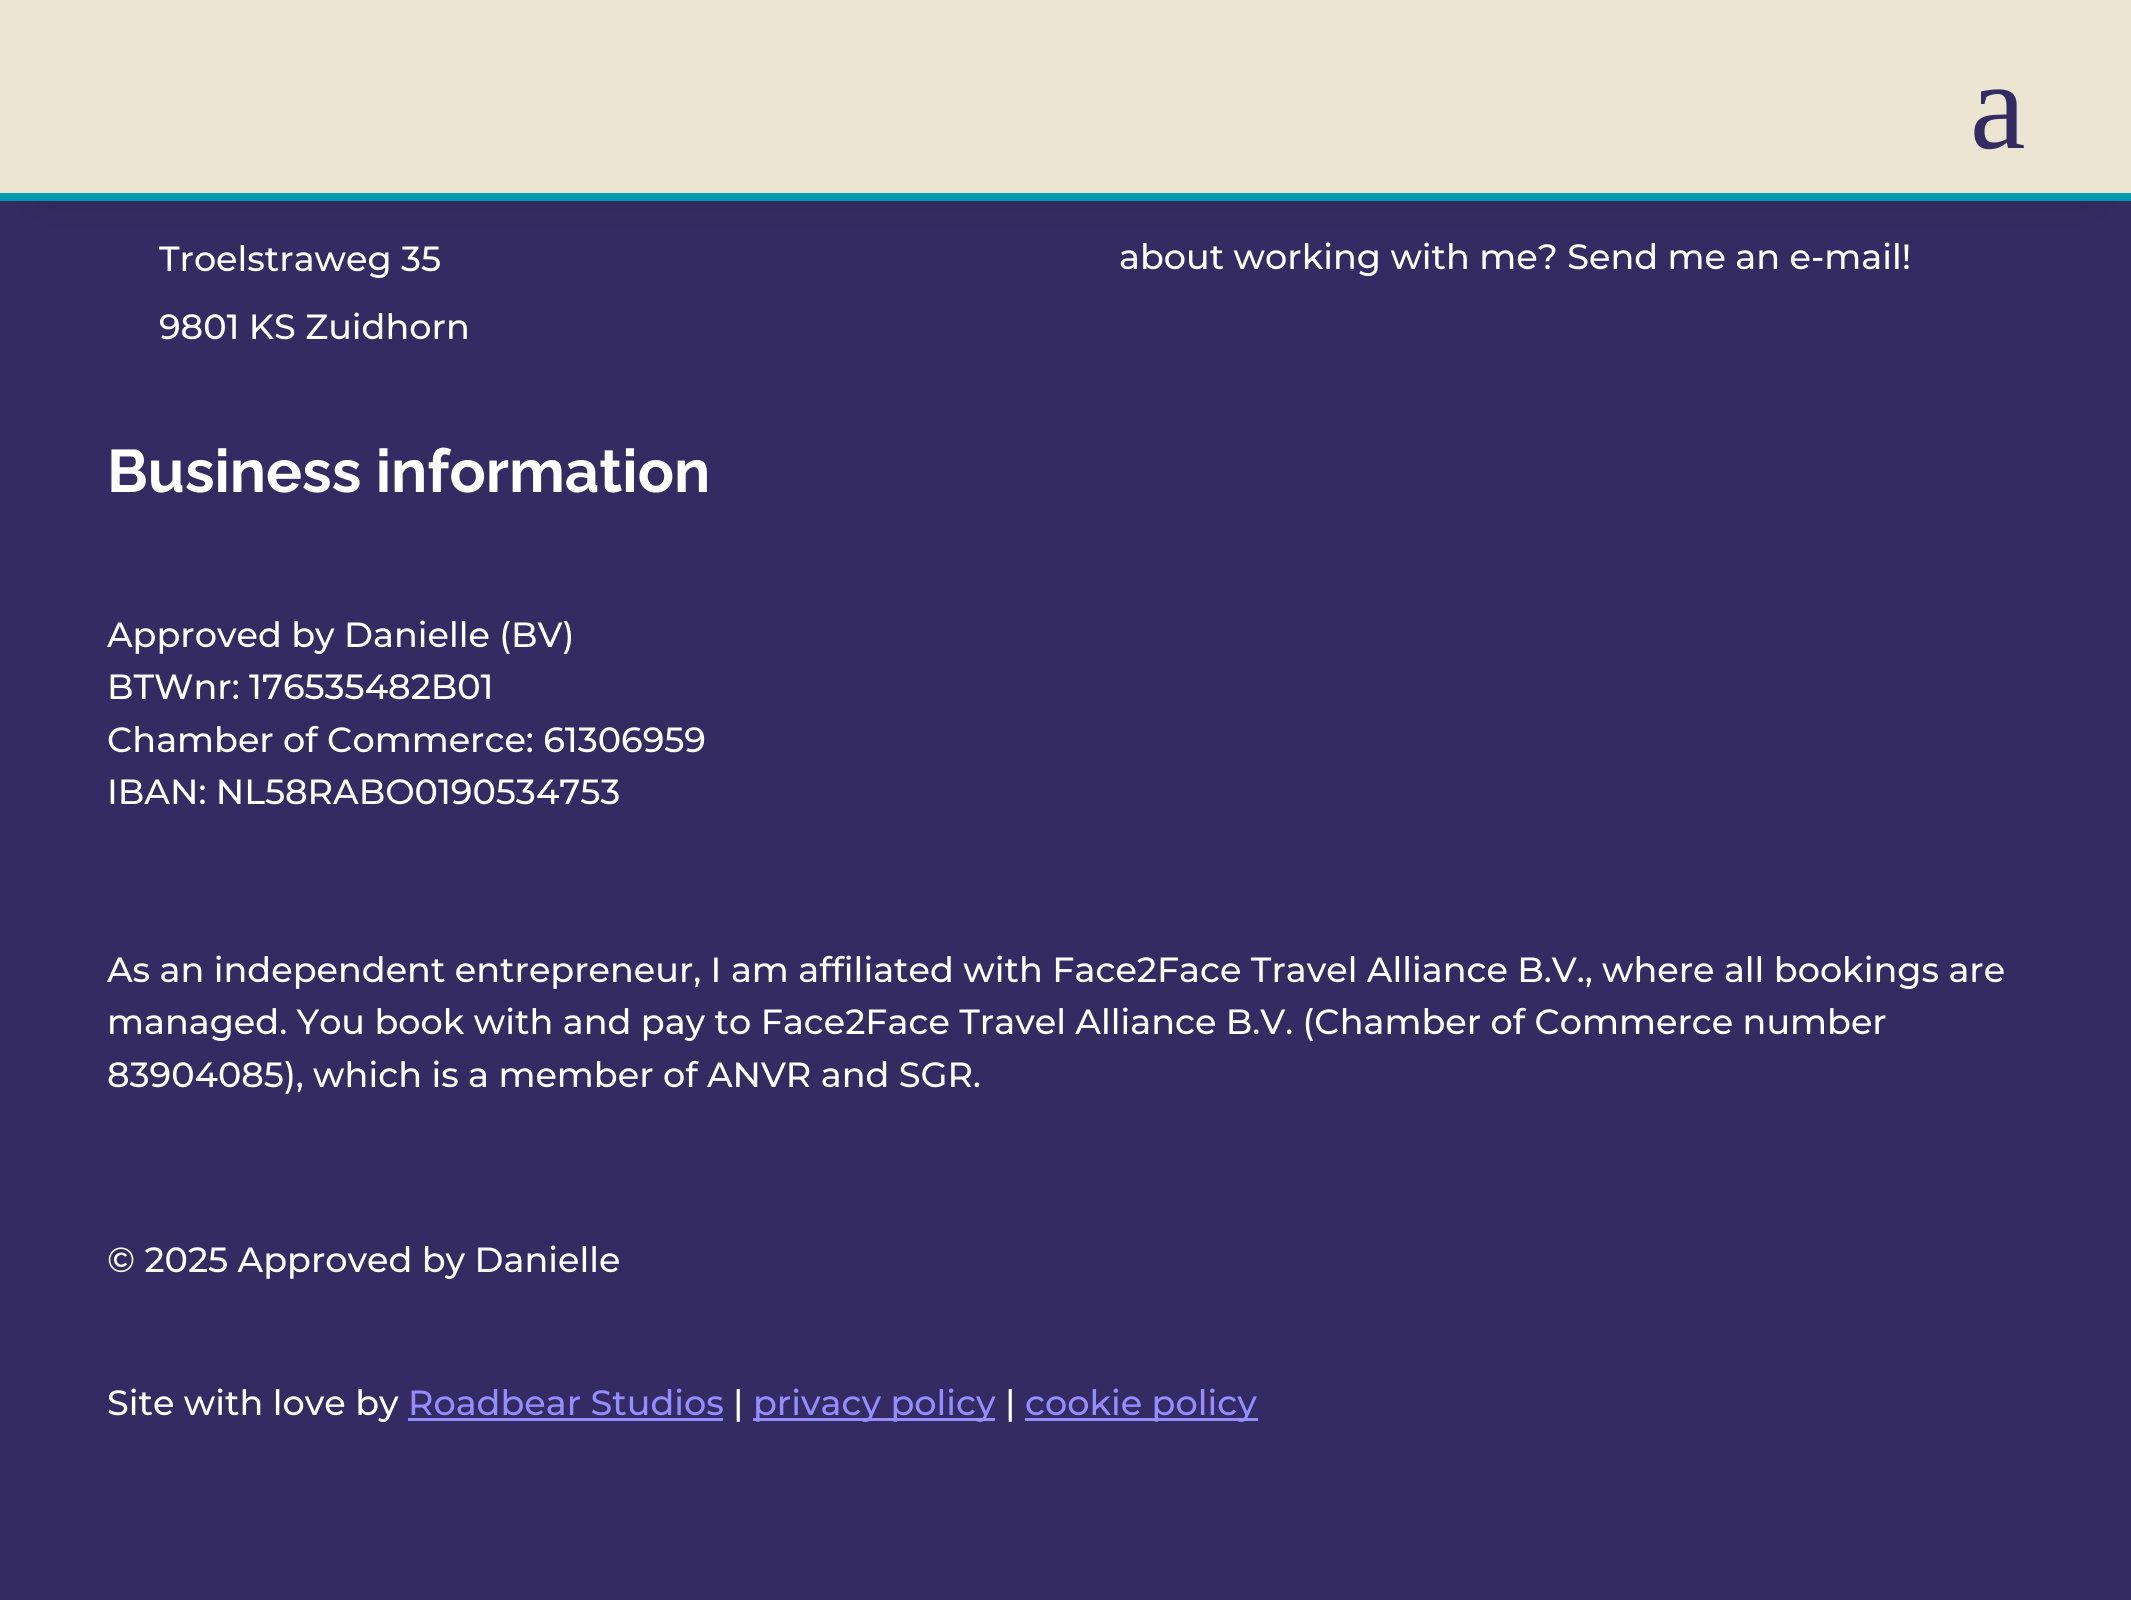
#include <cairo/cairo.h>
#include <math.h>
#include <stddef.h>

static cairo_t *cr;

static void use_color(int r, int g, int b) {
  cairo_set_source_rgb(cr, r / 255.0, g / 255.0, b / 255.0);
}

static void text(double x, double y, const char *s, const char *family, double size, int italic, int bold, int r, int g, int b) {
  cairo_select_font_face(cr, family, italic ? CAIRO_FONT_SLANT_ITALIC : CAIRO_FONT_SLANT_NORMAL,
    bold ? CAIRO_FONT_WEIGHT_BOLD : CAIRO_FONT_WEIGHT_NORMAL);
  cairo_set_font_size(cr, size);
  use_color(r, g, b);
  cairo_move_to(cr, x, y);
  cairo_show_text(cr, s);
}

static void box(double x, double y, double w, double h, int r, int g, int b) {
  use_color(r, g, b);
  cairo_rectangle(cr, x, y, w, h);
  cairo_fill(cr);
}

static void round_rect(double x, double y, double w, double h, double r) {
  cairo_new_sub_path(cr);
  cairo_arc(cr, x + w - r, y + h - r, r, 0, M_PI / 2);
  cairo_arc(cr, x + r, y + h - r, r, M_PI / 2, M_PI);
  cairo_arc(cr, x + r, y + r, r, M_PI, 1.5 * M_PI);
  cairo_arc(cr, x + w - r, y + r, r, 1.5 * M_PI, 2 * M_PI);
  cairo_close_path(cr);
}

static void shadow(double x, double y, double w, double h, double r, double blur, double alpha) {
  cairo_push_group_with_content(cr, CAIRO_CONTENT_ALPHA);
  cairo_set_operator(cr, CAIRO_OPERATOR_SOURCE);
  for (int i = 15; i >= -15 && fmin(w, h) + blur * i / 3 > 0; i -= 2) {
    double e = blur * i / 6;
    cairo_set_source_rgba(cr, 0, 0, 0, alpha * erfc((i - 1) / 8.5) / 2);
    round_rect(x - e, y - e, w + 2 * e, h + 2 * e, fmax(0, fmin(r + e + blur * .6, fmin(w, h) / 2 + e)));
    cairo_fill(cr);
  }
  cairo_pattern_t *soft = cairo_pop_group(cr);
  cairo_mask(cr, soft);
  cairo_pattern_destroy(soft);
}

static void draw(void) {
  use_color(52, 43, 99);
  cairo_paint(cr);
  use_color(0, 0, 0);
  shadow(45, 75, 2043, 110, 0, 22.5, 0.3);
  box(0, 0, 2131, 193, 236, 229, 210);
  box(0, 193, 2131, 8, 4, 155, 177);
  box(408, 1418, 315, 3, 148, 140, 255);
  box(753, 1418, 242, 3, 148, 140, 255);
  box(1025, 1418, 233, 3, 148, 140, 255);
  text(1970, 148, "a", "Liberation Serif", 125, 0, 0, 52, 43, 99);
  text(159, 271, "Troelstraweg 35", "Montserrat Medium", 35, 0, 0, 255, 255, 255);
  text(159, 339, "9801 KS Zuidhorn", "Montserrat Medium", 35, 0, 0, 255, 255, 255);
  text(1119, 269, "about working with me? Send me an e-mail!", "Montserrat Medium", 35, 0, 0, 255, 255, 255);
  text(107, 492, "Business information", "Raleway", 60, 0, 1, 255, 255, 255);
  text(107, 647, "Approved by Danielle (BV)", "Montserrat Medium", 35, 0, 0, 255, 255, 255);
  text(107, 699, "BTWnr: 176535482B01", "Montserrat Medium", 35, 0, 0, 255, 255, 255);
  text(107, 752, "Chamber of Commerce: 61306959", "Montserrat Medium", 35, 0, 0, 255, 255, 255);
  text(107, 804, "IBAN: NL58RABO0190534753", "Montserrat Medium", 35, 0, 0, 255, 255, 255);
  text(107, 982, "As an independent entrepreneur, I am affiliated with Face2Face Travel Alliance B.V., where all bookings are", "Montserrat Medium", 35, 0, 0, 255, 255, 255);
  text(107, 1034, "managed. You book with and pay to Face2Face Travel Alliance B.V. (Chamber of Commerce number", "Montserrat Medium", 35, 0, 0, 255, 255, 255);
  text(107, 1087, "83904085), which is a member of ANVR and SGR.", "Montserrat Medium", 35, 0, 0, 255, 255, 255);
  text(107, 1272, "© 2025 Approved by Danielle", "Montserrat Medium", 35, 0, 0, 255, 255, 255);
  text(107, 1415, "Site with love by", "Montserrat Medium", 35, 0, 0, 255, 255, 255);
  text(408, 1415, "Roadbear Studios", "Montserrat Medium", 35, 0, 0, 148, 140, 255);
  text(733, 1415, "|", "Montserrat Medium", 35, 0, 0, 255, 255, 255);
  text(753, 1415, "privacy policy", "Montserrat Medium", 35, 0, 0, 148, 140, 255);
  text(1005, 1415, "|", "Montserrat Medium", 35, 0, 0, 255, 255, 255);
  text(1025, 1415, "cookie policy", "Montserrat Medium", 35, 0, 0, 148, 140, 255);
}

int main(void) {
  cairo_surface_t *surface = cairo_image_surface_create(CAIRO_FORMAT_RGB24, 2131, 1600);
  cr = cairo_create(surface);
  cairo_font_options_t *options = cairo_font_options_create();
  cairo_font_options_set_hint_metrics(options, CAIRO_HINT_METRICS_OFF);
  cairo_font_options_set_hint_style(options, CAIRO_HINT_STYLE_NONE);
  cairo_set_font_options(cr, options);
  cairo_set_miter_limit(cr, 4);
  draw();
  cairo_surface_write_to_png(surface, "out.png");
  cairo_font_options_destroy(options);
  cairo_destroy(cr);
  cairo_surface_destroy(surface);
  return 0;
}
